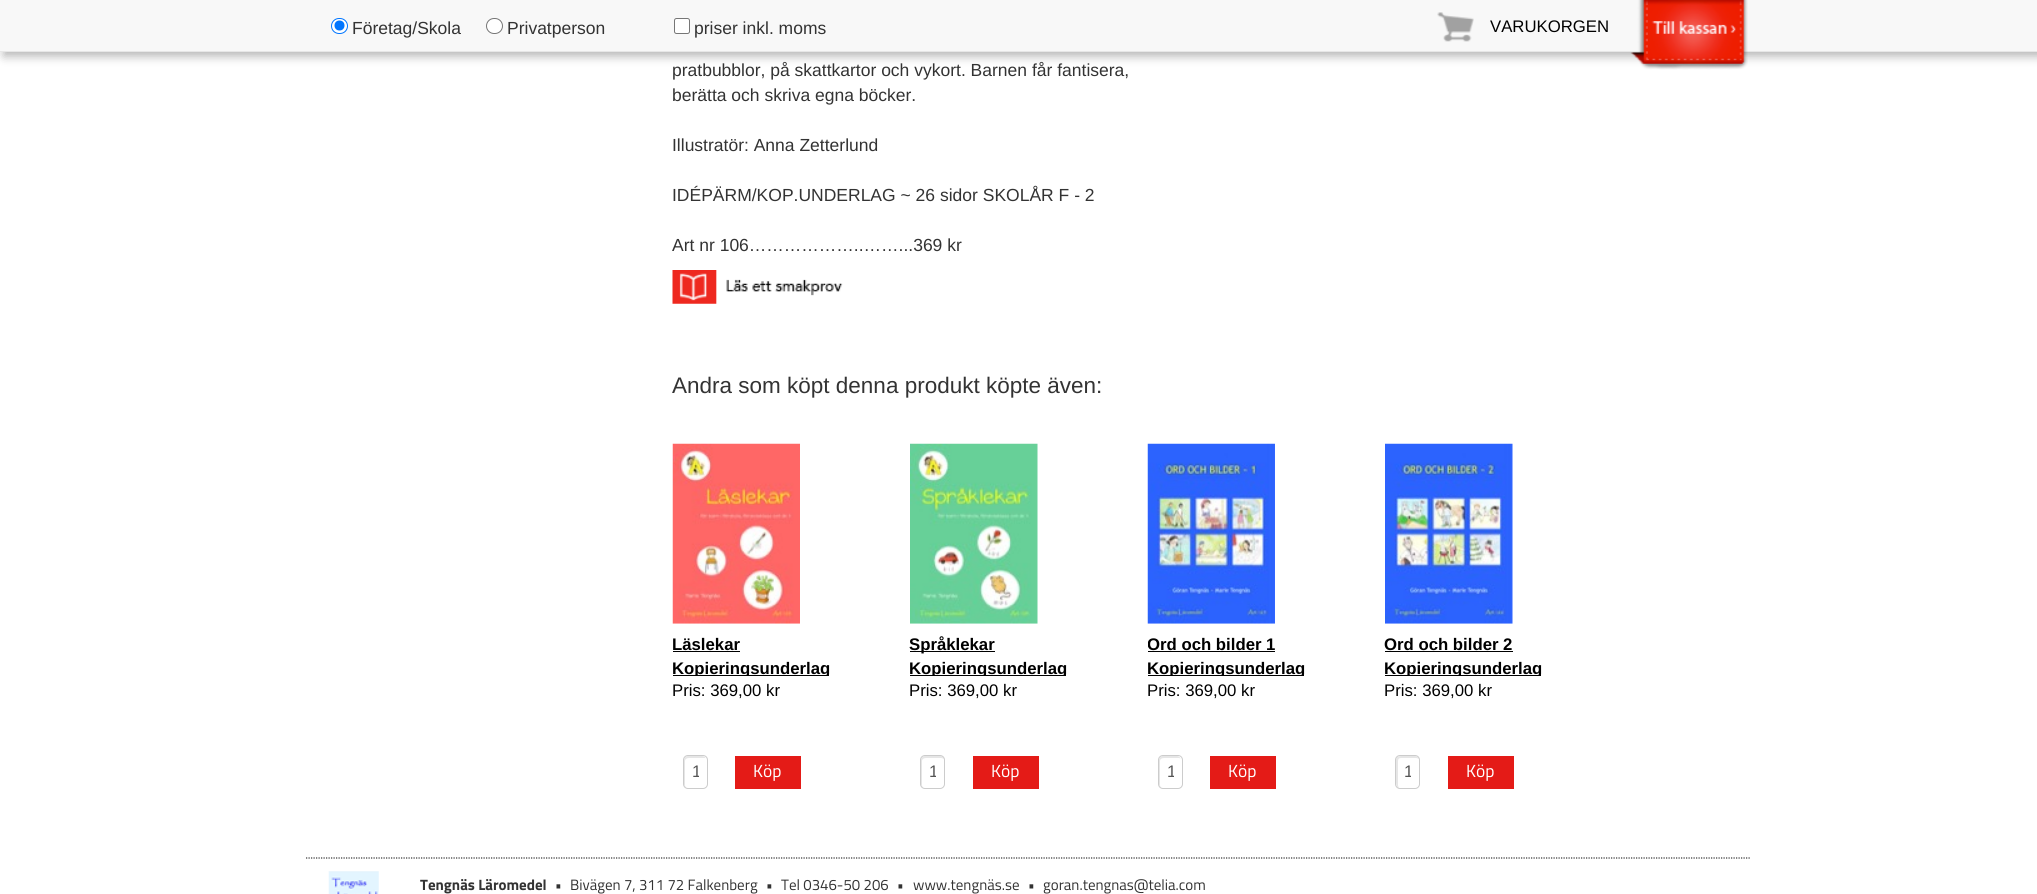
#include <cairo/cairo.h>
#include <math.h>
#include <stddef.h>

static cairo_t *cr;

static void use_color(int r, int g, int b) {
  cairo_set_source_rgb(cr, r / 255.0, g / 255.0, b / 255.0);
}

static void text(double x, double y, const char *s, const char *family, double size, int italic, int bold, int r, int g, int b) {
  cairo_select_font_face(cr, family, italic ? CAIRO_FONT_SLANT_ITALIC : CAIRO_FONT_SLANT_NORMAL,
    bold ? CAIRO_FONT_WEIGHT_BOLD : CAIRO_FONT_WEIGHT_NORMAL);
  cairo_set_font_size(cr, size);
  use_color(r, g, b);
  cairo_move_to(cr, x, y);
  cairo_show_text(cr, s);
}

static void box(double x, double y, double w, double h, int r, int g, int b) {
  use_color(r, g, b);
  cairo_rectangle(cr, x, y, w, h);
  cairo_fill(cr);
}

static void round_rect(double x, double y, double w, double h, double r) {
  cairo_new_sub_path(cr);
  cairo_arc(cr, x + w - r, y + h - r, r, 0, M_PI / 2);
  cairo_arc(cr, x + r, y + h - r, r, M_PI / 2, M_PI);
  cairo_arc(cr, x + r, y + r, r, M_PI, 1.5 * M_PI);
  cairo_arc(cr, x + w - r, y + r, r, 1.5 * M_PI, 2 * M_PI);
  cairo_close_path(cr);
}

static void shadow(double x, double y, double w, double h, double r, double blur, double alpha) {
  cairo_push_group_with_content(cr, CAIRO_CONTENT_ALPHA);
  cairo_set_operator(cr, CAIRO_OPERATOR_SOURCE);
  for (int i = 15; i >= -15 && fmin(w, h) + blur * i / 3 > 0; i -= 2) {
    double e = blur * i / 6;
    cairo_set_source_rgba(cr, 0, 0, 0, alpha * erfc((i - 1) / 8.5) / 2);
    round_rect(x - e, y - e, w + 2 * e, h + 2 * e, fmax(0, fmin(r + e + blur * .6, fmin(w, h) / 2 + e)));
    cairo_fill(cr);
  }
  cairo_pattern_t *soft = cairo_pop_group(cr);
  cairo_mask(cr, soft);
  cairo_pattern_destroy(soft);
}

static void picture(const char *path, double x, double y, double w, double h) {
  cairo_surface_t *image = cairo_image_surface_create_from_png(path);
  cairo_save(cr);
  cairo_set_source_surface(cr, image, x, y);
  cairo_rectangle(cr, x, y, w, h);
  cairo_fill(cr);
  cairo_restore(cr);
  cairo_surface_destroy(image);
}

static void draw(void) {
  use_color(255, 255, 255);
  cairo_paint(cr);
  use_color(0, 0, 0);
  shadow(4, 4, 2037, 52, 0, 5, 0.3);
  box(0, 0, 2037, 51, 248, 248, 248);
  box(0, 51, 2037, 1, 231, 231, 231);
  use_color(255, 255, 255);
  round_rect(331.5, 18.5, 16, 15, 7.5);
  cairo_fill_preserve(cr);
  use_color(0, 117, 255);
  cairo_set_line_width(cr, 1);
  cairo_stroke(cr);
  cairo_arc(cr, 339.5, 25.5, 5, 0, 2 * M_PI);
  cairo_fill(cr);
  use_color(255, 255, 255);
  round_rect(486.5, 18.5, 16, 15, 7.5);
  cairo_fill_preserve(cr);
  use_color(118, 118, 118);
  cairo_stroke(cr);
  use_color(255, 255, 255);
  round_rect(674.5, 18.5, 15, 15, 2);
  cairo_fill_preserve(cr);
  use_color(118, 118, 118);
  cairo_stroke(cr);
  picture("img_01.png", 1437, 12, 37, 30);
  picture("img_02.png", 1630, 0, 118, 70);
  picture("img_03.png", 672, 270, 171, 34);
  picture("img_04.png", 672, 443, 128, 181);
  box(673, 651, 67, 1, 0, 0, 0);
  box(673, 675, 156, 1, 0, 0, 0);
  use_color(230, 230, 230);
  cairo_new_path(cr);
  cairo_move_to(cr, 689, 758);
  cairo_line_to(cr, 705.5, 758);
  cairo_curve_to(cr, 705, 757, 703.5, 756, 702, 756);
  cairo_line_to(cr, 688, 756);
  cairo_curve_to(cr, 686, 756, 684, 758, 684, 760);
  cairo_line_to(cr, 684, 784);
  cairo_curve_to(cr, 684, 785.5, 685, 787, 686, 787.5);
  cairo_curve_to(cr, 685.5, 786.5, 685, 786, 685, 785);
  cairo_line_to(cr, 685, 761);
  cairo_curve_to(cr, 685, 759, 687, 758, 689, 758);
  cairo_close_path(cr);
  cairo_fill(cr);
  round_rect(683.5, 755.5, 24, 33, 4.5);
  use_color(204, 204, 204);
  cairo_stroke(cr);
  box(735, 756, 66, 33, 228, 27, 23);
  picture("img_05.png", 910, 443, 128, 181);
  box(910, 651, 85, 1, 0, 0, 0);
  box(910, 675, 156, 1, 0, 0, 0);
  use_color(230, 230, 230);
  cairo_new_path(cr);
  cairo_move_to(cr, 926, 758);
  cairo_line_to(cr, 941, 758);
  cairo_curve_to(cr, 942, 758, 943, 758.5, 944, 759);
  cairo_curve_to(cr, 943.5, 757, 942, 756, 940, 756);
  cairo_line_to(cr, 925, 756);
  cairo_curve_to(cr, 923, 756, 921, 758, 921, 760);
  cairo_line_to(cr, 921, 784);
  cairo_curve_to(cr, 921, 785.5, 922, 787, 923, 787.5);
  cairo_curve_to(cr, 922.5, 786.5, 922, 786, 922, 785);
  cairo_line_to(cr, 922, 761);
  cairo_curve_to(cr, 922, 759, 924, 758, 926, 758);
  cairo_close_path(cr);
  cairo_fill(cr);
  round_rect(920.5, 755.5, 24, 33, 4.5);
  use_color(204, 204, 204);
  cairo_stroke(cr);
  box(973, 756, 66, 33, 228, 27, 23);
  picture("img_06.png", 1147, 443, 128, 181);
  box(1148, 651, 127, 1, 0, 0, 0);
  box(1148, 675, 156, 1, 0, 0, 0);
  use_color(230, 230, 230);
  cairo_new_path(cr);
  cairo_move_to(cr, 1164, 758);
  cairo_line_to(cr, 1179, 758);
  cairo_line_to(cr, 1180.5, 758.5);
  cairo_curve_to(cr, 1180, 757, 1178.5, 756, 1177, 756);
  cairo_line_to(cr, 1163, 756);
  cairo_curve_to(cr, 1161, 756, 1159, 758, 1159, 760);
  cairo_line_to(cr, 1159, 784);
  cairo_curve_to(cr, 1159, 785.5, 1160, 787, 1161, 787.5);
  cairo_curve_to(cr, 1160.5, 786.5, 1160, 786, 1160, 785);
  cairo_line_to(cr, 1160, 761);
  cairo_curve_to(cr, 1160, 759, 1162, 758, 1164, 758);
  cairo_close_path(cr);
  cairo_fill(cr);
  round_rect(1158.5, 755.5, 24, 33, 4.5);
  use_color(204, 204, 204);
  cairo_stroke(cr);
  box(1210, 756, 66, 33, 228, 27, 23);
  picture("img_07.png", 1385, 443, 128, 181);
  box(1385, 651, 128, 1, 0, 0, 0);
  box(1385, 675, 156, 1, 0, 0, 0);
  use_color(230, 230, 230);
  cairo_new_path(cr);
  cairo_move_to(cr, 1401, 758);
  cairo_line_to(cr, 1416, 758);
  cairo_curve_to(cr, 1417, 758, 1418, 758.5, 1419, 759);
  cairo_curve_to(cr, 1417.5, 755, 1413, 756, 1410, 756);
  cairo_curve_to(cr, 1393.5, 756, 1396, 754.5, 1396, 772);
  cairo_line_to(cr, 1396, 780);
  cairo_curve_to(cr, 1396, 783, 1395.5, 786.5, 1399, 788);
  cairo_curve_to(cr, 1398.5, 787, 1398, 786, 1398, 785);
  cairo_line_to(cr, 1398, 761);
  cairo_curve_to(cr, 1398, 759, 1399, 758, 1401, 758);
  cairo_close_path(cr);
  cairo_fill(cr);
  round_rect(1395.5, 755.5, 24, 33, 4.5);
  use_color(204, 204, 204);
  cairo_stroke(cr);
  box(1448, 756, 66, 33, 228, 27, 23);
  cairo_new_path(cr);
  cairo_move_to(cr, 306, 858);
  cairo_line_to(cr, 1750, 858);
  use_color(51, 51, 51);
  cairo_set_line_width(cr, 1.2);
  cairo_set_dash(cr, (double[]){1.25, 1.25}, 2, 0);
  cairo_stroke(cr);
  picture("img_08.png", 328, 871, 51, 23);
  text(352, 34, "Företag/Skola", "Liberation Sans", 17.5, 0, 0, 51, 51, 51);
  text(507, 34, "Privatperson", "Liberation Sans", 17.5, 0, 0, 51, 51, 51);
  text(694, 34, "priser inkl. moms", "Liberation Sans", 17.5, 0, 0, 51, 51, 51);
  text(1490, 32, "VARUKORGEN", "Liberation Sans", 16.75, 0, 0, 0, 0, 0);
  text(672, 76, "pratbubblor, på skattkartor och vykort. Barnen får fantisera,", "Liberation Sans", 17.5, 0, 0, 51, 51, 51);
  text(672, 101, "berätta och skriva egna böcker.", "Liberation Sans", 17.5, 0, 0, 51, 51, 51);
  text(672, 151, "Illustratör: Anna Zetterlund", "Liberation Sans", 17.5, 0, 0, 51, 51, 51);
  text(672, 201, "IDÉPÄRM/KOP.UNDERLAG ~ 26 sidor SKOLÅR F - 2", "Liberation Sans", 17.5, 0, 0, 51, 51, 51);
  text(672, 251, "Art nr 106………………..……...369 kr", "Liberation Sans", 17.5, 0, 0, 51, 51, 51);
  text(672, 393, "Andra som köpt denna produkt köpte även:", "Liberation Sans", 22.5, 0, 0, 51, 51, 51);
  text(672, 650, "Läslekar", "Liberation Sans", 16.75, 0, 1, 0, 0, 0);
  cairo_save(cr);
  cairo_rectangle(cr, 673, 633, 212, 43);
  cairo_clip(cr);
  text(672, 674, "Kopieringsunderlag", "Liberation Sans", 16.75, 0, 1, 0, 0, 0);
  cairo_restore(cr);
  text(672, 696, "Pris: 369,00 kr", "Liberation Sans", 16.75, 0, 0, 0, 0, 0);
  cairo_save(cr);
  cairo_rectangle(cr, 691, 760, 8, 24);
  cairo_clip(cr);
  text(692, 777, "1", "Liberation Sans", 16.75, 0, 0, 85, 85, 85);
  cairo_restore(cr);
  text(753, 777, "Köp", "Titillium Web", 17.5, 0, 0, 255, 255, 255);
  text(909, 650, "Språklekar", "Liberation Sans", 16.75, 0, 1, 0, 0, 0);
  cairo_save(cr);
  cairo_rectangle(cr, 910, 633, 213, 43);
  cairo_clip(cr);
  text(909, 674, "Kopieringsunderlag", "Liberation Sans", 16.75, 0, 1, 0, 0, 0);
  cairo_restore(cr);
  text(909, 696, "Pris: 369,00 kr", "Liberation Sans", 16.75, 0, 0, 0, 0, 0);
  cairo_save(cr);
  cairo_rectangle(cr, 929, 760, 7, 24);
  cairo_clip(cr);
  text(929, 777, "1", "Liberation Sans", 16.75, 0, 0, 85, 85, 85);
  cairo_restore(cr);
  text(991, 777, "Köp", "Titillium Web", 17.5, 0, 0, 255, 255, 255);
  cairo_save(cr);
  cairo_rectangle(cr, 1148, 633, 212, 43);
  cairo_clip(cr);
  text(1147, 650, "Ord och bilder 1", "Liberation Sans", 16.75, 0, 1, 0, 0, 0);
  text(1147, 674, "Kopieringsunderlag", "Liberation Sans", 16.75, 0, 1, 0, 0, 0);
  cairo_restore(cr);
  text(1147, 696, "Pris: 369,00 kr", "Liberation Sans", 16.75, 0, 0, 0, 0, 0);
  cairo_save(cr);
  cairo_rectangle(cr, 1166, 760, 8, 24);
  cairo_clip(cr);
  text(1167, 777, "1", "Liberation Sans", 16.75, 0, 0, 85, 85, 85);
  cairo_restore(cr);
  text(1228, 777, "Köp", "Titillium Web", 17.5, 0, 0, 255, 255, 255);
  text(1384, 650, "Ord och bilder 2", "Liberation Sans", 16.75, 0, 1, 0, 0, 0);
  cairo_save(cr);
  cairo_rectangle(cr, 1385, 633, 213, 43);
  cairo_clip(cr);
  text(1384, 674, "Kopieringsunderlag", "Liberation Sans", 16.75, 0, 1, 0, 0, 0);
  cairo_restore(cr);
  text(1384, 696, "Pris: 369,00 kr", "Liberation Sans", 16.75, 0, 0, 0, 0, 0);
  cairo_save(cr);
  cairo_rectangle(cr, 1404, 760, 7, 24);
  cairo_clip(cr);
  text(1404, 777, "1", "Liberation Sans", 16.75, 0, 0, 85, 85, 85);
  cairo_restore(cr);
  text(1466, 777, "Köp", "Titillium Web", 17.5, 0, 0, 255, 255, 255);
  text(420, 890, "Tengnäs Läromedel", "Titillium Web", 15, 0, 1, 51, 51, 51);
  text(555, 890, "•", "Titillium Web", 15, 0, 1, 51, 51, 51);
  text(570, 890, "Bivägen 7, 311 72 Falkenberg", "Titillium Web", 15, 0, 0, 51, 51, 51);
  text(766, 890, "•", "Titillium Web", 15, 0, 1, 51, 51, 51);
  text(781, 890, "Tel 0346-50 206", "Titillium Web", 15, 0, 0, 51, 51, 51);
  text(897, 890, "•", "Titillium Web", 15, 0, 1, 51, 51, 51);
  text(913, 890, "www.tengnäs.se", "Titillium Web", 15, 0, 0, 51, 51, 51);
  text(1028, 890, "•", "Titillium Web", 15, 0, 1, 51, 51, 51);
  text(1043, 890, "goran.tengnas@telia.com", "Titillium Web", 15, 0, 0, 51, 51, 51);
}

int main(void) {
  cairo_surface_t *surface = cairo_image_surface_create(CAIRO_FORMAT_RGB24, 2037, 894);
  cr = cairo_create(surface);
  cairo_font_options_t *options = cairo_font_options_create();
  cairo_font_options_set_hint_metrics(options, CAIRO_HINT_METRICS_OFF);
  cairo_font_options_set_hint_style(options, CAIRO_HINT_STYLE_NONE);
  cairo_set_font_options(cr, options);
  cairo_set_miter_limit(cr, 4);
  draw();
  cairo_surface_write_to_png(surface, "out.png");
  cairo_font_options_destroy(options);
  cairo_destroy(cr);
  cairo_surface_destroy(surface);
  return 0;
}
